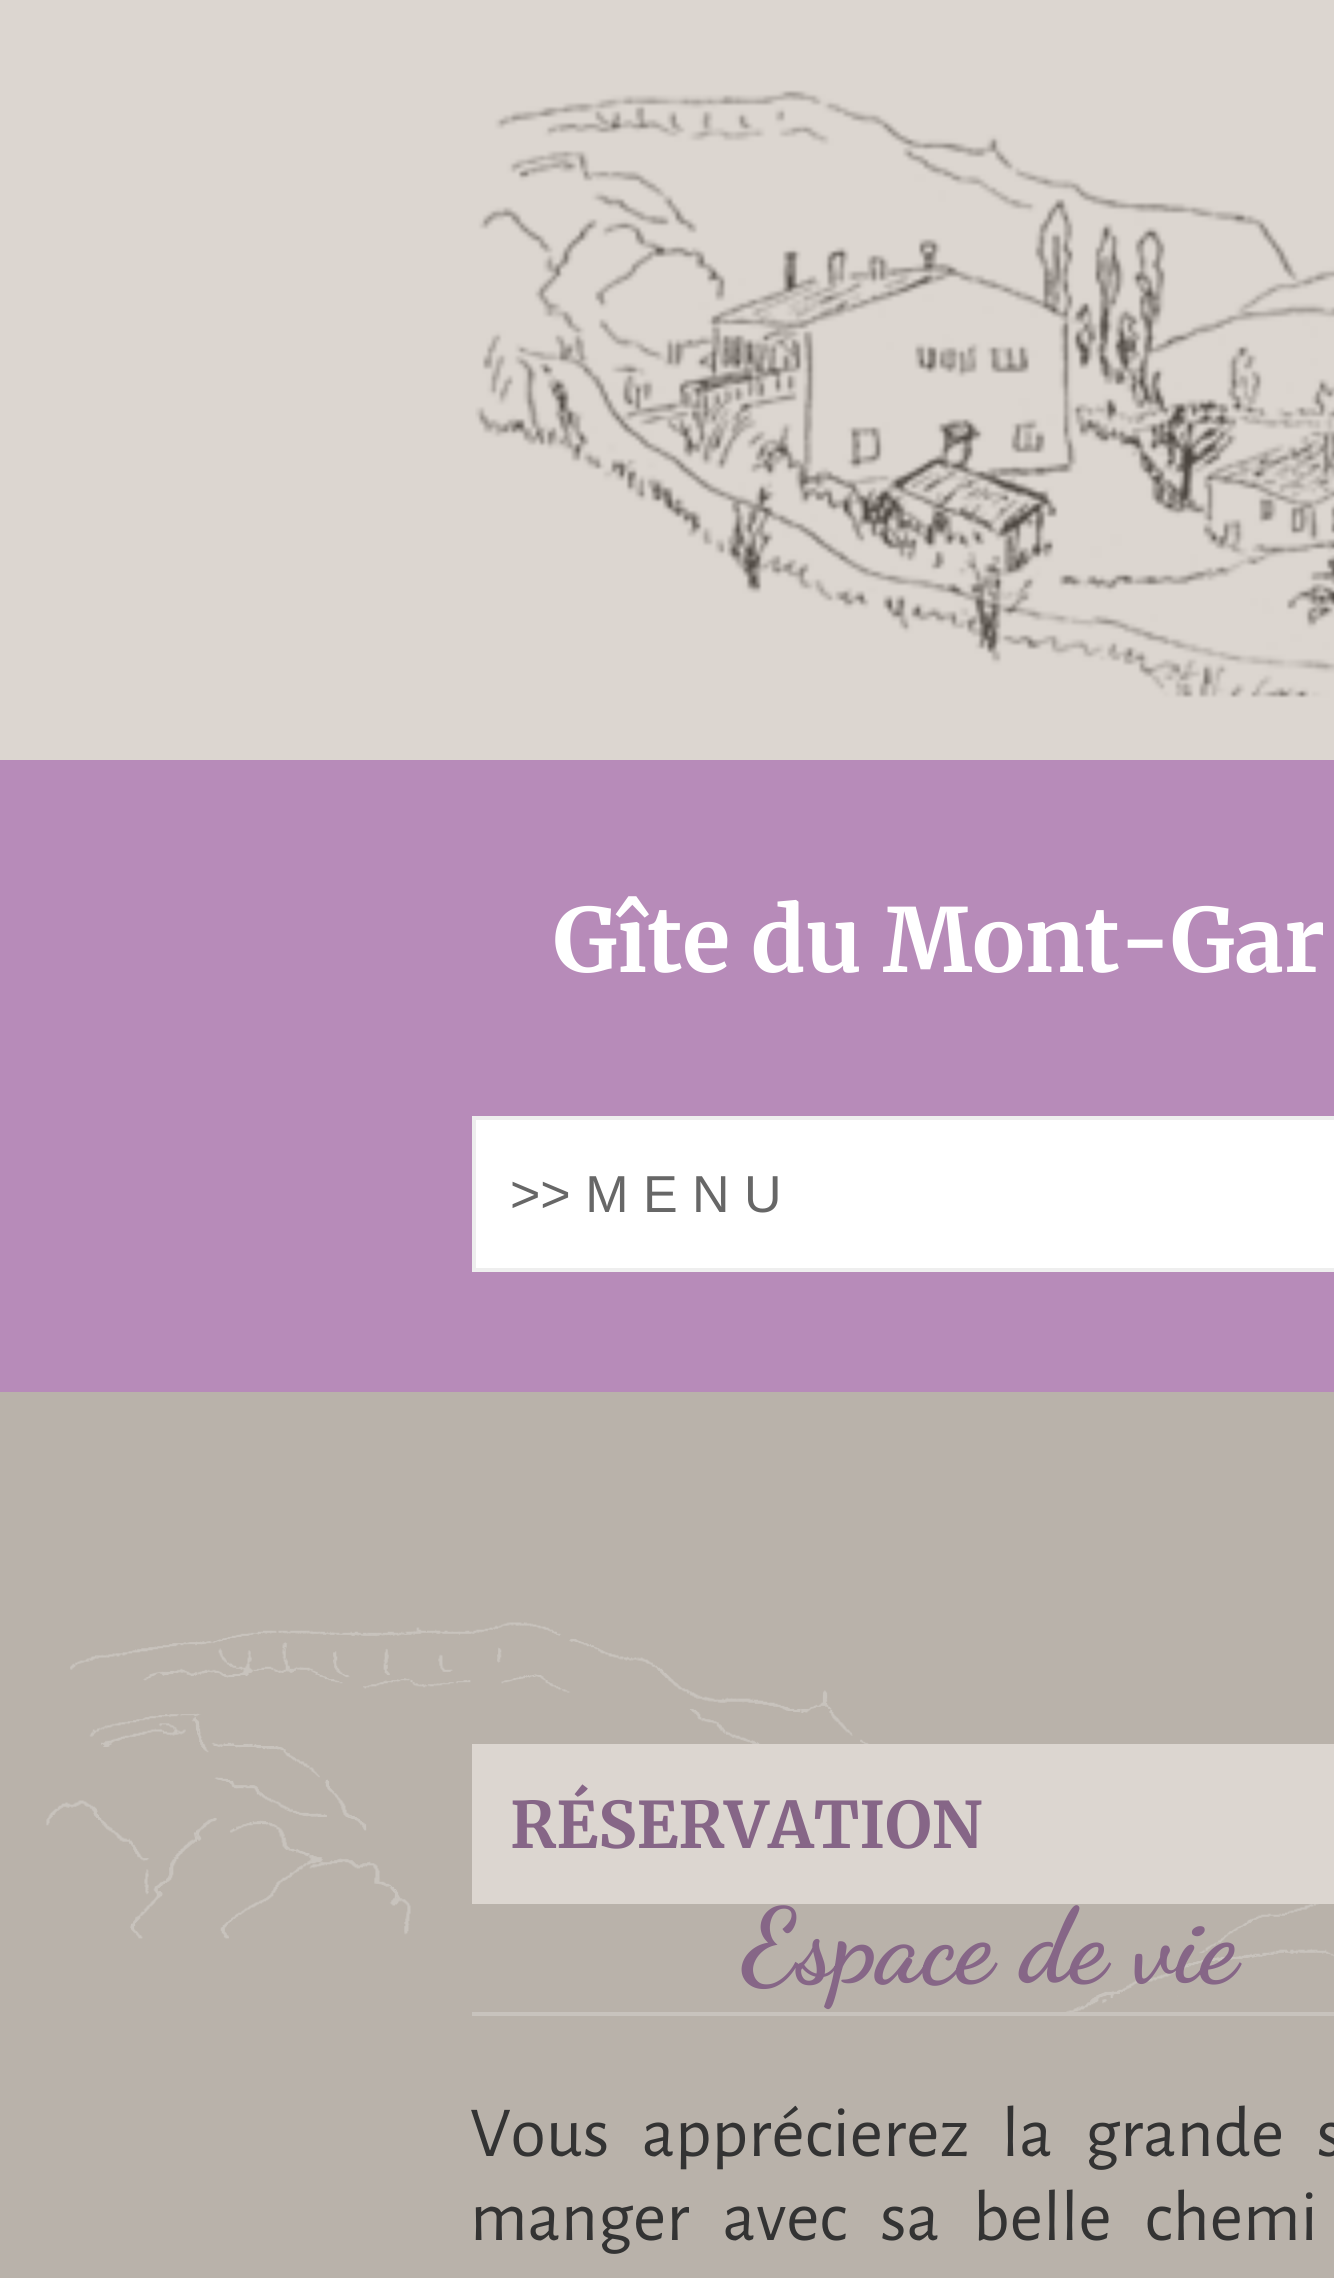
#include <cairo/cairo.h>
#include <math.h>
#include <stddef.h>

static cairo_t *cr;

static void use_color(int r, int g, int b) {
  cairo_set_source_rgb(cr, r / 255.0, g / 255.0, b / 255.0);
}

static void text(double x, double y, const char *s, const char *family, double size, int italic, int bold, int r, int g, int b) {
  cairo_select_font_face(cr, family, italic ? CAIRO_FONT_SLANT_ITALIC : CAIRO_FONT_SLANT_NORMAL,
    bold ? CAIRO_FONT_WEIGHT_BOLD : CAIRO_FONT_WEIGHT_NORMAL);
  cairo_set_font_size(cr, size);
  use_color(r, g, b);
  cairo_move_to(cr, x, y);
  cairo_show_text(cr, s);
}

static void spaced_text(double x, double y, const char *s, double letter, double word) {
  cairo_move_to(cr, x, y);
  while (*s) {
    char ch[5] = {0};
    int n = 0;
    do ch[n++] = *s++; while ((*s & 0xC0) == 0x80);
    cairo_show_text(cr, ch);
    cairo_rel_move_to(cr, letter + word * (*ch == ' '), 0);
  }
}

static void box(double x, double y, double w, double h, int r, int g, int b) {
  use_color(r, g, b);
  cairo_rectangle(cr, x, y, w, h);
  cairo_fill(cr);
}

static void picture(const char *path, double x, double y, double w, double h) {
  cairo_surface_t *image = cairo_image_surface_create_from_png(path);
  cairo_save(cr);
  cairo_set_source_surface(cr, image, x, y);
  cairo_rectangle(cr, x, y, w, h);
  cairo_fill(cr);
  cairo_restore(cr);
  cairo_surface_destroy(image);
}

static void draw(void) {
  use_color(220, 214, 208);
  cairo_paint(cr);
  picture("img_01.png", 475, 90, 859, 608);
  box(0, 760, 1334, 632, 183, 139, 185);
  use_color(255, 255, 255);
  cairo_rectangle(cr, 474, 1118, 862, 152);
  cairo_fill_preserve(cr);
  use_color(238, 238, 238);
  cairo_set_line_width(cr, 4);
  cairo_stroke(cr);
  box(0, 1392, 1334, 886, 185, 178, 170);
  picture("img_02.png", 46, 1622, 1288, 392);
  box(472, 1744, 862, 160, 220, 214, 208);
  box(472, 2012, 862, 4, 200, 195, 189);
  text(553, 972, "Gîte du Mont-Gar", "Merriweather", 88, 0, 1, 255, 255, 255);
  text(510, 1212, ">> M E N U", "Liberation Sans", 52, 0, 0, 103, 103, 103);
  text(510, 1848, "RÉSERVATION", "Merriweather", 64, 0, 1, 134, 102, 135);
  text(742, 1980, "Espace de vie", "Dancing Script", 104, 0, 1, 134, 102, 135);
  cairo_select_font_face(cr, "Alegreya Sans", CAIRO_FONT_SLANT_NORMAL, CAIRO_FONT_WEIGHT_NORMAL);
  cairo_set_font_size(cr, 72);
  use_color(51, 51, 51);
  spaced_text(470, 2156, "Vous apprécierez la grande s", 0, 20.5);
  spaced_text(470, 2240, "manger avec sa belle chemi", 0, 21);
}

int main(void) {
  cairo_surface_t *surface = cairo_image_surface_create(CAIRO_FORMAT_RGB24, 1334, 2278);
  cr = cairo_create(surface);
  cairo_font_options_t *options = cairo_font_options_create();
  cairo_font_options_set_hint_metrics(options, CAIRO_HINT_METRICS_OFF);
  cairo_font_options_set_hint_style(options, CAIRO_HINT_STYLE_NONE);
  cairo_set_font_options(cr, options);
  cairo_set_miter_limit(cr, 4);
  draw();
  cairo_surface_write_to_png(surface, "out.png");
  cairo_font_options_destroy(options);
  cairo_destroy(cr);
  cairo_surface_destroy(surface);
  return 0;
}
